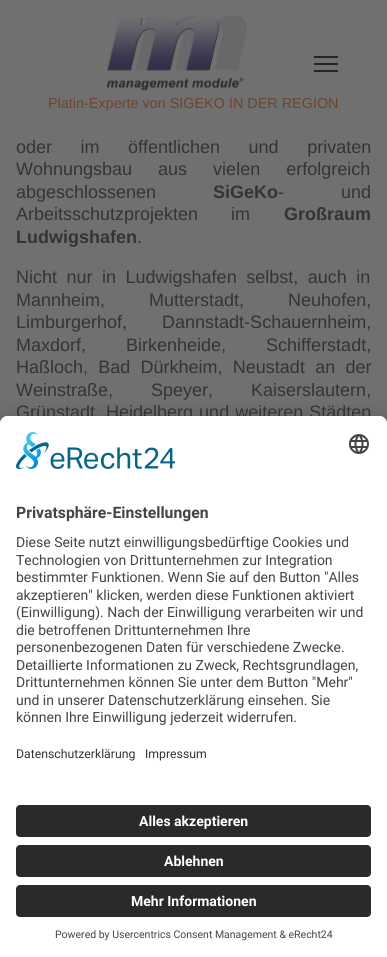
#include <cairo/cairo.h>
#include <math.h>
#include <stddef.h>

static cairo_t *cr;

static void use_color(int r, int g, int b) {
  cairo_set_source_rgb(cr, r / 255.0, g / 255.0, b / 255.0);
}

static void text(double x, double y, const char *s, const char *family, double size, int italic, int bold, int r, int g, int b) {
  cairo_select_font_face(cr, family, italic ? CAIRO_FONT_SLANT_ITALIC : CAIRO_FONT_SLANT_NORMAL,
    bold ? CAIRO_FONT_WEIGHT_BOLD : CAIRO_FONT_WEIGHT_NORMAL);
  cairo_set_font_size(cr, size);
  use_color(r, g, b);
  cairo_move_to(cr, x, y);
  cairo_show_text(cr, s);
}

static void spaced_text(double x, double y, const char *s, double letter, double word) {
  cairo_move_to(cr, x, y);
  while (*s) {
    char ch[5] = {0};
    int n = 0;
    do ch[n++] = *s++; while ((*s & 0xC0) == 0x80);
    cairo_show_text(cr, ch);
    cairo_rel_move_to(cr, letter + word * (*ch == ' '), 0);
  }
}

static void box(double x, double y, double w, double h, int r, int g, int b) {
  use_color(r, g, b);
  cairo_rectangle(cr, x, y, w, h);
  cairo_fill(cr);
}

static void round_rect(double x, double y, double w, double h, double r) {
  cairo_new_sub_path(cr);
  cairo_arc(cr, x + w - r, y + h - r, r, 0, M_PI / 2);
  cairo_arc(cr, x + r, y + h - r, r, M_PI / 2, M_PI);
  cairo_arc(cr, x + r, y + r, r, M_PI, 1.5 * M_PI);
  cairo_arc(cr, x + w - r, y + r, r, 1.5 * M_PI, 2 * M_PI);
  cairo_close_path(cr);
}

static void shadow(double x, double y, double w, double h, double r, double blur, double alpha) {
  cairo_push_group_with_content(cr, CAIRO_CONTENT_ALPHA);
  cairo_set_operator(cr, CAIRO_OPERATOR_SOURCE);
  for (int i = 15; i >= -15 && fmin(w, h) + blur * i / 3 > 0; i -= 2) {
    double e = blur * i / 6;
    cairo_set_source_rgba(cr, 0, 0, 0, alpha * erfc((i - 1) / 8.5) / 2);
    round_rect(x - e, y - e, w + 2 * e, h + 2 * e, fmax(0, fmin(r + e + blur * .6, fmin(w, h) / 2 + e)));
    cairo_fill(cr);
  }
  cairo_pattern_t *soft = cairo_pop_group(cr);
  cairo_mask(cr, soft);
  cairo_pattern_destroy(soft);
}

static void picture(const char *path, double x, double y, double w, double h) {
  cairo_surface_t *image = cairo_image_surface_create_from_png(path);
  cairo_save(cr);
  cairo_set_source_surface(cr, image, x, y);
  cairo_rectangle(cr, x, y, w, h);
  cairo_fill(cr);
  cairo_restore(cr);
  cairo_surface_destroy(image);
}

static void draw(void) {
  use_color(112, 112, 112);
  cairo_paint(cr);
  box(314, 56, 24, 2, 36, 36, 36);
  box(314, 63, 24, 2, 36, 36, 36);
  box(314, 70, 24, 2, 36, 36, 36);
  picture("img_01.png", 107, 16, 140, 75);
  use_color(0, 0, 0);
  shadow(0, 436, 387, 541, 8, 14, 0.3);
  shadow(0, 421, 387, 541, 8, 13, 0.22);
  text(48, 108, "Platin-Experte von SIGEKO IN DER REGION", "Liberation Sans", 14.4, 0, 0, 112, 67, 44);
  cairo_set_font_size(cr, 18);
  use_color(50, 52, 53);
  spaced_text(16, 153, "oder im öffentlichen und privaten", 0, 23.5);
  spaced_text(16, 175, "Wohnungsbau aus vielen erfolgreich", 0, 21);
  text(16, 198, "abgeschlossenen", "Liberation Sans", 18, 0, 0, 50, 52, 53);
  text(213, 198, "SiGeKo", "Liberation Sans", 18, 0, 1, 50, 52, 53);
  cairo_select_font_face(cr, "Liberation Sans", CAIRO_FONT_SLANT_NORMAL, CAIRO_FONT_WEIGHT_NORMAL);
  spaced_text(278, 198, "- und", 0, 52);
  spaced_text(16, 220, "Arbeitsschutzprojekten im", 0, 28);
  text(284, 220, "Großraum", "Liberation Sans", 18, 0, 1, 50, 52, 53);
  text(16, 243, "Ludwigshafen", "Liberation Sans", 18, 0, 1, 50, 52, 53);
  text(137, 243, ".", "Liberation Sans", 18, 0, 0, 50, 52, 53);
  spaced_text(16, 283, "Nicht nur in Ludwigshafen selbst, auch in", 0, 4.5);
  spaced_text(16, 306, "Mannheim, Mutterstadt, Neuhofen,", 0, 39);
  spaced_text(16, 328, "Limburgerhof, Dannstadt-Schauernheim,", 0, 30);
  spaced_text(16, 351, "Maxdorf, Birkenheide, Schifferstadt,", 0, 35);
  spaced_text(16, 373, "Haßloch, Bad Dürkheim, Neustadt an der", 0, 5.25);
  spaced_text(16, 396, "Weinstraße, Speyer, Kaiserslautern,", 0, 33);
  spaced_text(16, 418, "Grünstadt, Heidelberg und weiteren Städten", 0, 1);
  use_color(255, 255, 255);
  cairo_new_path(cr);
  cairo_move_to(cr, 8, 416);
  cairo_line_to(cr, 379, 416);
  cairo_curve_to(cr, 383.5, 416, 387, 419.5, 387, 424);
  cairo_line_to(cr, 387, 957);
  cairo_line_to(cr, 0, 957);
  cairo_line_to(cr, 0, 424);
  cairo_curve_to(cr, 0, 419.5, 3.5, 416, 8, 416);
  cairo_close_path(cr);
  cairo_fill(cr);
  cairo_new_path(cr);
  cairo_move_to(cr, 8, 416);
  cairo_line_to(cr, 379, 416);
  cairo_curve_to(cr, 383.5, 416, 387, 419.5, 387, 424);
  cairo_line_to(cr, 387, 793);
  cairo_line_to(cr, 0, 793);
  cairo_line_to(cr, 0, 424);
  cairo_curve_to(cr, 0, 419.5, 3.5, 416, 8, 416);
  cairo_close_path(cr);
  cairo_fill(cr);
  picture("img_02.png", 16, 432, 160, 37);
  picture("img_03.png", 349, 434, 20, 20);
  text(16, 518, "Privatsphäre-Einstellungen", "Roboto", 15.75, 0, 1, 68, 68, 68);
  text(16, 547, "Diese Seite nutzt einwilligungsbedürftige Cookies und", "Roboto", 14, 0, 0, 68, 68, 68);
  text(16, 565, "Technologien von Drittunternehmen zur Integration", "Roboto", 14, 0, 0, 68, 68, 68);
  text(16, 582, "bestimmter Funktionen. Wenn Sie auf den Button \"Alles", "Roboto", 14, 0, 0, 68, 68, 68);
  text(16, 600, "akzeptieren\" klicken, werden diese Funktionen aktiviert", "Roboto", 14, 0, 0, 68, 68, 68);
  text(16, 617, "(Einwilligung). Nach der Einwilligung verarbeiten wir und", "Roboto", 14, 0, 0, 68, 68, 68);
  text(16, 635, "die betroffenen Drittunternehmen Ihre", "Roboto", 14, 0, 0, 68, 68, 68);
  text(16, 652, "personenbezogenen Daten für verschiedene Zwecke.", "Roboto", 14, 0, 0, 68, 68, 68);
  text(16, 670, "Detaillierte Informationen zu Zweck, Rechtsgrundlagen,", "Roboto", 14, 0, 0, 68, 68, 68);
  text(16, 687, "Drittunternehmen können Sie unter dem Button \"Mehr\"", "Roboto", 14, 0, 0, 68, 68, 68);
  text(16, 705, "und in unserer Datenschutzerklärung einsehen. Sie", "Roboto", 14, 0, 0, 68, 68, 68);
  text(16, 722, "können Ihre Einwilligung jederzeit widerrufen.", "Roboto", 14, 0, 0, 68, 68, 68);
  text(16, 758, "Datenschutzerklärung", "Roboto", 12.25, 0, 0, 50, 52, 53);
  text(145, 758, "Impressum", "Roboto", 12.25, 0, 0, 50, 52, 53);
  use_color(41, 42, 43);
  round_rect(16, 805, 355, 32, 4);
  cairo_fill(cr);
  text(139, 826, "Alles akzeptieren", "Roboto", 14, 0, 1, 255, 255, 255);
  use_color(41, 42, 43);
  round_rect(16, 845, 355, 32, 4);
  cairo_fill(cr);
  text(164, 866, "Ablehnen", "Roboto", 14, 0, 1, 255, 255, 255);
  use_color(41, 42, 43);
  round_rect(16, 885, 355, 32, 4);
  cairo_fill(cr);
  text(131, 906, "Mehr Informationen", "Roboto", 14, 0, 1, 255, 255, 255);
  text(55, 938, "Powered by Usercentrics Consent Management & eRecht24", "Roboto", 10.5, 0, 0, 68, 68, 68);
}

int main(void) {
  cairo_surface_t *surface = cairo_image_surface_create(CAIRO_FORMAT_RGB24, 387, 957);
  cr = cairo_create(surface);
  cairo_font_options_t *options = cairo_font_options_create();
  cairo_font_options_set_hint_metrics(options, CAIRO_HINT_METRICS_OFF);
  cairo_font_options_set_hint_style(options, CAIRO_HINT_STYLE_NONE);
  cairo_set_font_options(cr, options);
  cairo_set_miter_limit(cr, 4);
  draw();
  cairo_surface_write_to_png(surface, "out.png");
  cairo_font_options_destroy(options);
  cairo_destroy(cr);
  cairo_surface_destroy(surface);
  return 0;
}
